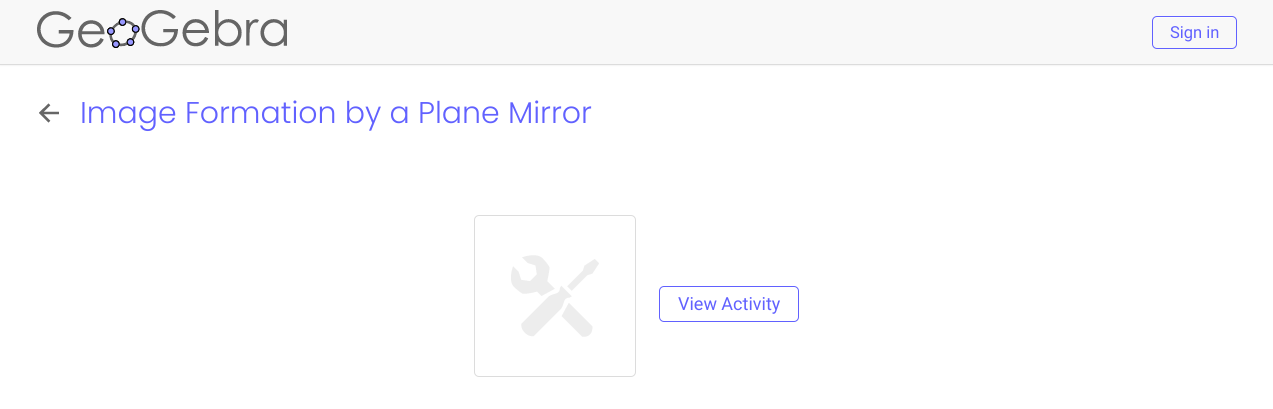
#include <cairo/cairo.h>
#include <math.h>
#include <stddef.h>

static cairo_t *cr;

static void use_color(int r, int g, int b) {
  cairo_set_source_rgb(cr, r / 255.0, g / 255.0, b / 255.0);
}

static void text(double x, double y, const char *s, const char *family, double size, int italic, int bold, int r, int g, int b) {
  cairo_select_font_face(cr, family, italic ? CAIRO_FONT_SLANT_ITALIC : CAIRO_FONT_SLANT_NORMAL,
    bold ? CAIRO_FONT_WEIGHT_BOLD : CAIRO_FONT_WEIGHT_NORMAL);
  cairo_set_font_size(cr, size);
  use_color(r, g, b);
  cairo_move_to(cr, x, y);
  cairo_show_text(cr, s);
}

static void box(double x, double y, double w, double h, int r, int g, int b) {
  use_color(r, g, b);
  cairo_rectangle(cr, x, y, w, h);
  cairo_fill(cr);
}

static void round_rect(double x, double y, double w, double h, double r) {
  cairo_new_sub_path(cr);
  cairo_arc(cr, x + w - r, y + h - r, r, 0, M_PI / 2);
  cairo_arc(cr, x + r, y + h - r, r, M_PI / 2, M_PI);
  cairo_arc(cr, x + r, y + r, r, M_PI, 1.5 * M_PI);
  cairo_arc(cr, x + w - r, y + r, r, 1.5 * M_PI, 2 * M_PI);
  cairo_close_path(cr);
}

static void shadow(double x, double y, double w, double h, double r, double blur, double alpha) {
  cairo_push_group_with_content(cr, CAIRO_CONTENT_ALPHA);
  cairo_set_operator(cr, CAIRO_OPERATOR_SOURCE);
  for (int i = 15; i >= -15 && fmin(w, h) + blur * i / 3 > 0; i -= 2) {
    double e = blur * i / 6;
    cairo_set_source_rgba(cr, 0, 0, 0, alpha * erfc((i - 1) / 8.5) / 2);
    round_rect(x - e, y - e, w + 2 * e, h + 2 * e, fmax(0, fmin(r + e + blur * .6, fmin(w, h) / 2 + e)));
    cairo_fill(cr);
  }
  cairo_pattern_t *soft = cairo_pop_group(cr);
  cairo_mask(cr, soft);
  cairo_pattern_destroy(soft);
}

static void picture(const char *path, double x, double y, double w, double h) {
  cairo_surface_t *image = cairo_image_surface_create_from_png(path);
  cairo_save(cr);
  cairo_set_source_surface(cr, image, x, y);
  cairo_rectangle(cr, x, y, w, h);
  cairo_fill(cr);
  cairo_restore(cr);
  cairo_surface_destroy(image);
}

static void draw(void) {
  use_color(255, 255, 255);
  cairo_paint(cr);
  use_color(204, 204, 204);
  shadow(0, 0, 1273, 65, 0, 1, 0.5);
  box(0, 0, 1273, 64, 248, 248, 248);
  box(0, 64, 1273, 1, 220, 220, 220);
  picture("img_01.png", 37, 10, 250, 38);
  use_color(253, 253, 253);
  cairo_new_path(cr);
  cairo_move_to(cr, 1157, 18);
  cairo_line_to(cr, 1232, 18);
  cairo_curve_to(cr, 1234, 18, 1236, 20, 1236, 22);
  cairo_curve_to(cr, 1236, 14, 1224, 17, 1220, 17);
  cairo_line_to(cr, 1170, 17);
  cairo_curve_to(cr, 1165, 17, 1153, 14, 1153, 22);
  cairo_curve_to(cr, 1153, 20, 1155, 18, 1157, 18);
  cairo_close_path(cr);
  cairo_fill(cr);
  round_rect(1152.5, 16.5, 84, 32, 4.5);
  use_color(97, 97, 255);
  cairo_set_line_width(cr, 1);
  cairo_stroke(cr);
  picture("img_02.png", 39, 103, 20, 20);
  round_rect(474.5, 215.5, 161, 161, 4.5);
  use_color(220, 220, 220);
  cairo_stroke(cr);
  picture("img_03.png", 511, 255, 88, 82);
  round_rect(659.5, 286.5, 139, 35, 4.5);
  use_color(97, 97, 255);
  cairo_stroke(cr);
  text(1170, 38, "Sign in", "Roboto", 16.5, 0, 0, 97, 97, 255);
  text(80, 123, "Image Formation by a Plane Mirror", "Poppins Light", 30, 0, 0, 97, 97, 255);
  text(678, 310, "View Activity", "Roboto", 18, 0, 0, 97, 97, 255);
}

int main(void) {
  cairo_surface_t *surface = cairo_image_surface_create(CAIRO_FORMAT_RGB24, 1273, 409);
  cr = cairo_create(surface);
  cairo_font_options_t *options = cairo_font_options_create();
  cairo_font_options_set_hint_metrics(options, CAIRO_HINT_METRICS_OFF);
  cairo_font_options_set_hint_style(options, CAIRO_HINT_STYLE_NONE);
  cairo_set_font_options(cr, options);
  cairo_set_miter_limit(cr, 4);
  draw();
  cairo_surface_write_to_png(surface, "out.png");
  cairo_font_options_destroy(options);
  cairo_destroy(cr);
  cairo_surface_destroy(surface);
  return 0;
}
